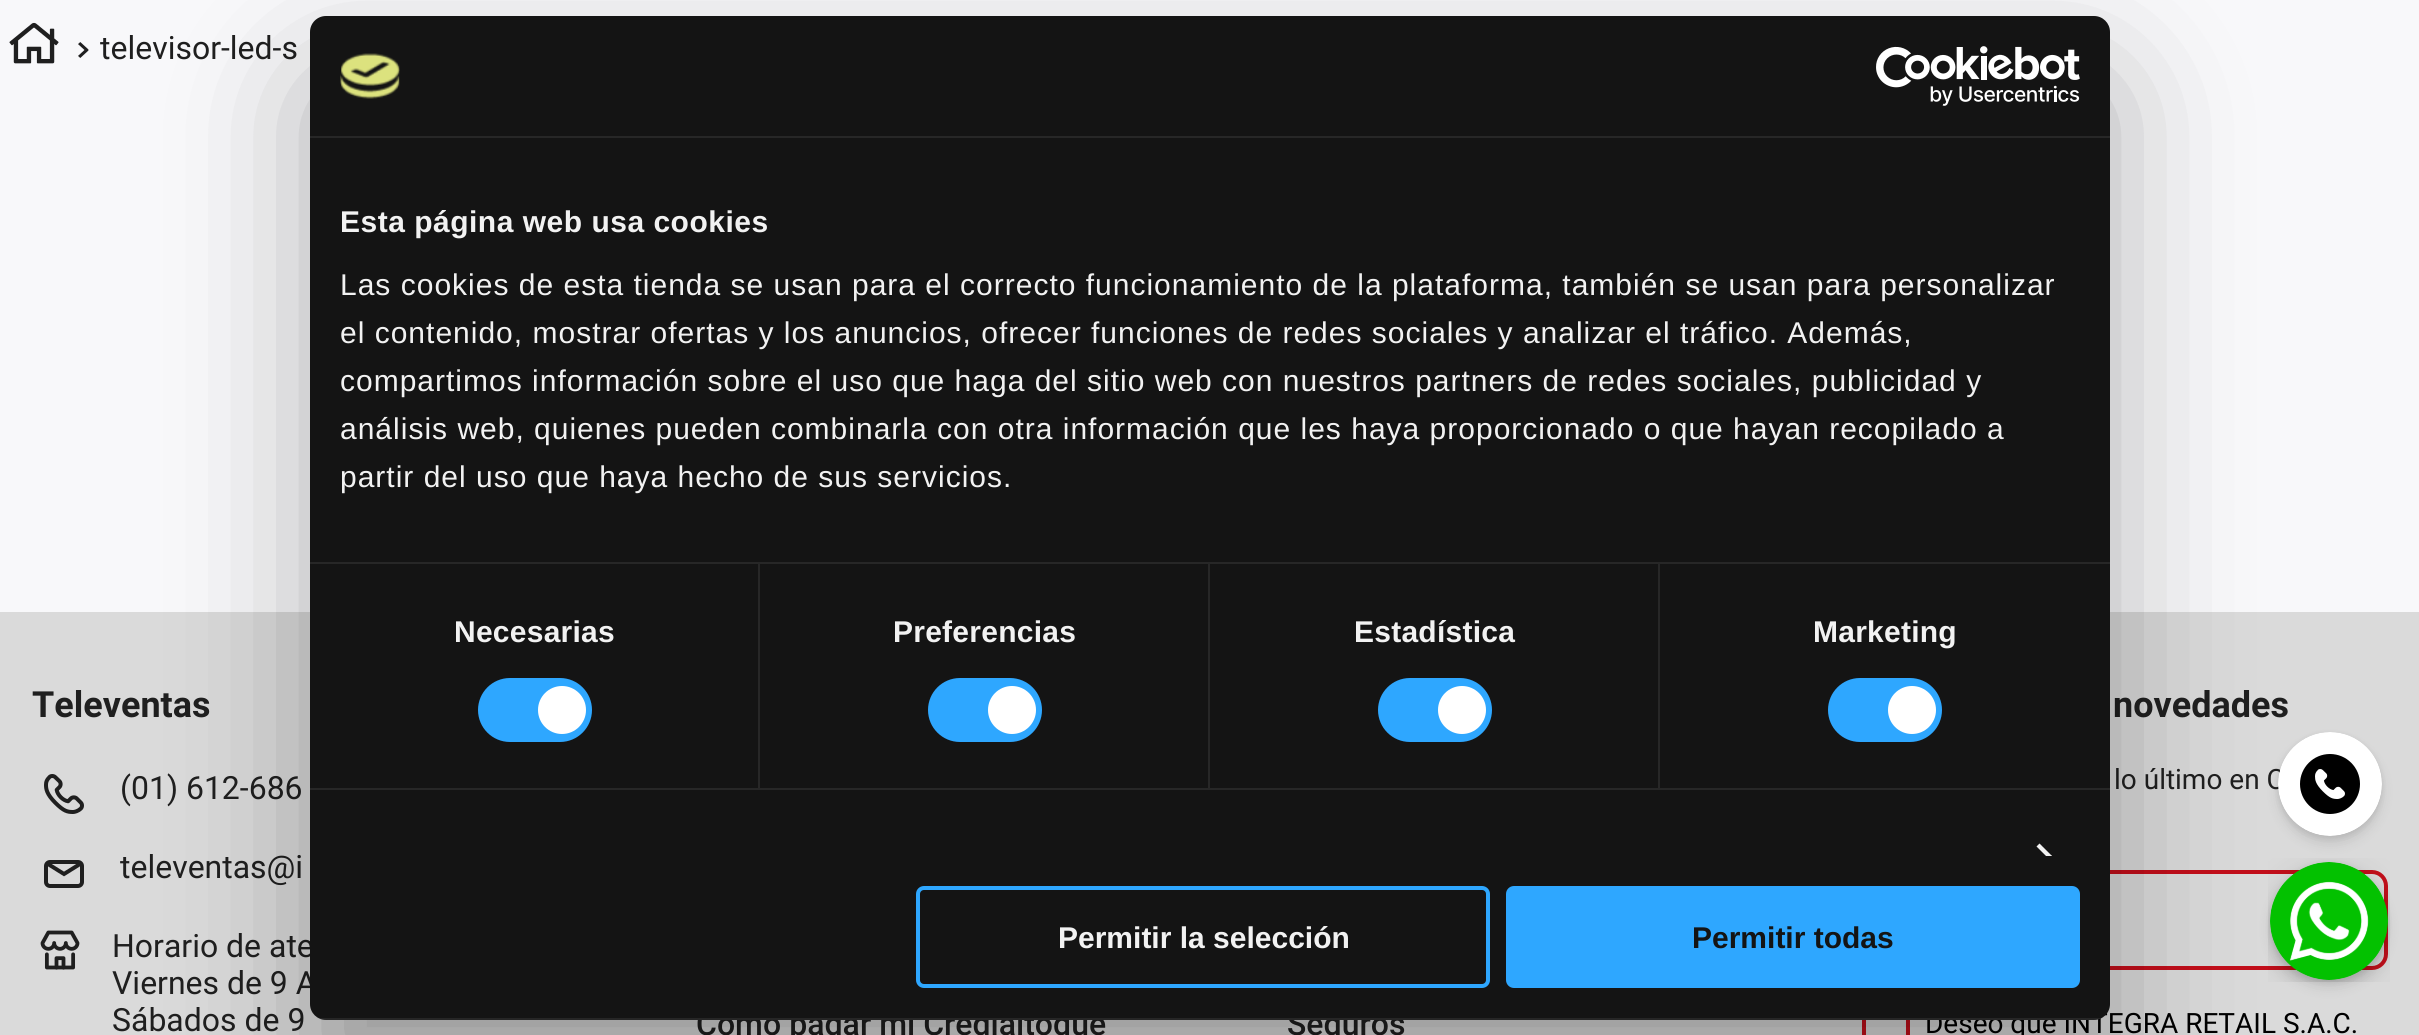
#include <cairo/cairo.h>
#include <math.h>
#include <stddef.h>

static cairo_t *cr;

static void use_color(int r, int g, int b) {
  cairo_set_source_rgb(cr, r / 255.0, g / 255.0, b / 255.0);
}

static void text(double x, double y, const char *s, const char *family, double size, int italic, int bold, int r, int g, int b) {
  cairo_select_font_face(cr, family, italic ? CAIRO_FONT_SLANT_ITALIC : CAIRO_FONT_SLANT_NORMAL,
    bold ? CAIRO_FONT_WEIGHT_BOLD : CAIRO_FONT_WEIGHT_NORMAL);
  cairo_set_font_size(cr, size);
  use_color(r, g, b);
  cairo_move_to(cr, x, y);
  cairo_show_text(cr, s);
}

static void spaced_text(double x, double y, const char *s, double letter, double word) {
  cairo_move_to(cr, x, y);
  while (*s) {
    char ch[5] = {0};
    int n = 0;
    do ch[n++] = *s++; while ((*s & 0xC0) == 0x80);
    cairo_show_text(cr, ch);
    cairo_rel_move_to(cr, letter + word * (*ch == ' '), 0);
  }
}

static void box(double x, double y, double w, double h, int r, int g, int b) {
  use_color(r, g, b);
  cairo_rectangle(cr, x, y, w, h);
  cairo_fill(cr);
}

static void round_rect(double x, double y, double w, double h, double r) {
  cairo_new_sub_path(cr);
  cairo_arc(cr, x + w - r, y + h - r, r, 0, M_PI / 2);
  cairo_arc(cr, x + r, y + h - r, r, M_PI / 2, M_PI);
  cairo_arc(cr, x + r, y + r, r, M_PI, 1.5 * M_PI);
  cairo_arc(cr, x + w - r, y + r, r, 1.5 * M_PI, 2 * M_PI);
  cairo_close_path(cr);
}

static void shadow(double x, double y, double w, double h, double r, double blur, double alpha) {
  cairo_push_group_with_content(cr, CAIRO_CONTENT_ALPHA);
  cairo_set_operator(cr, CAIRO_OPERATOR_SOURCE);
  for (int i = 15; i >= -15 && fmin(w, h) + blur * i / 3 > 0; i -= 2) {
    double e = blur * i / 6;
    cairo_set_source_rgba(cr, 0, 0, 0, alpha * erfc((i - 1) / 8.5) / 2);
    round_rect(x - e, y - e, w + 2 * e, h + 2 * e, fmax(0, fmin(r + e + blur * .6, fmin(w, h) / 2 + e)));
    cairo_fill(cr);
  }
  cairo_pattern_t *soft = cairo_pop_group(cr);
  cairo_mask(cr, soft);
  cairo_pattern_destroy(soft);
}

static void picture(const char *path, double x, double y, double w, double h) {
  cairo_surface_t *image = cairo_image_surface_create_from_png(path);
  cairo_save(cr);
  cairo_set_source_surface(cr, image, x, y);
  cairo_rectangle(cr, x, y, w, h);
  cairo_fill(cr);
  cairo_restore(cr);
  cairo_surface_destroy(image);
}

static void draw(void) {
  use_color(248, 248, 250);
  cairo_paint(cr);
  picture("img_01.png", 9, 22, 50, 42);
  picture("img_02.png", 78, 42, 11, 16);
  box(0, 612, 2419, 423, 218, 218, 218);
  picture("img_03.png", 44, 774, 40, 40);
  picture("img_04.png", 44, 860, 40, 28);
  picture("img_05.png", 40, 930, 40, 40);
  round_rect(1864, 872, 522, 96, 14);
  use_color(194, 14, 26);
  cairo_set_line_width(cr, 4);
  cairo_stroke(cr);
  cairo_rectangle(cr, 1864, 1004, 44, 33);
  cairo_stroke(cr);
  use_color(0, 0, 0);
  shadow(2278, 740, 104, 104, 52, 6, 0.1);
  shadow(2278, 734, 104, 104, 52, 3, 0.08);
  shadow(2270, 870, 118, 118, 59, 6, 0.1);
  shadow(2270, 864, 118, 118, 59, 3, 0.08);
  picture("img_07.png", 2268, 858, 122, 124);
  text(100, 59, "televisor-led-s", "Roboto", 32, 0, 0, 31, 31, 31);
  text(32, 717, "Televentas", "Roboto", 36, 0, 1, 31, 31, 31);
  text(120, 799, "(01) 612-686", "Roboto", 32, 0, 0, 31, 31, 31);
  text(120, 878, "televentas@i", "Roboto", 32, 0, 0, 31, 31, 31);
  text(112, 957, "Horario de ate", "Roboto", 32, 0, 0, 31, 31, 31);
  text(112, 994, "Viernes de 9 A", "Roboto", 32, 0, 0, 31, 31, 31);
  text(112, 1031, "Sábados de 9", "Roboto", 32, 0, 0, 31, 31, 31);
  text(696, 1035, "Cómo pagar mi Credialtoque", "Roboto Medium", 32, 0, 0, 31, 31, 31);
  text(1287, 1035, "Seguros", "Roboto Medium", 32, 0, 0, 31, 31, 31);
  text(2113, 717, "novedades", "Roboto", 36, 0, 1, 31, 31, 31);
  text(2114, 789, "lo último en C", "Roboto", 28, 0, 0, 31, 31, 31);
  text(1925, 1033, "Deseo que INTEGRA RETAIL S.A.C.", "Roboto", 28, 0, 0, 0, 0, 0);
  picture("img_06.png", 2278, 732, 104, 104);
  use_color(0, 0, 0);
  shadow(310, 80, 1800, 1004, 16, 68, 0.3);
  use_color(20, 20, 20);
  round_rect(310, 16, 1800, 1004, 16);
  cairo_fill(cr);
  box(310, 136, 1800, 2, 39, 39, 39);
  picture("img_08.png", 340, 53, 60, 46);
  picture("img_09.png", 1876, 46, 204, 60);
  box(310, 562, 1800, 2, 39, 39, 39);
  cairo_select_font_face(cr, "Liberation Sans", CAIRO_FONT_SLANT_NORMAL, CAIRO_FONT_WEIGHT_BOLD);
  cairo_set_font_size(cr, 30);
  use_color(242, 242, 242);
  spaced_text(340, 232, "Esta página web usa cookies", 0.5, 0);
  cairo_select_font_face(cr, "Liberation Sans", CAIRO_FONT_SLANT_NORMAL, CAIRO_FONT_WEIGHT_NORMAL);
  spaced_text(340, 295, "Las cookies de esta tienda se usan para el correcto funcionamiento de la plataforma, también se usan para personalizar", 1, 0);
  spaced_text(340, 343, "el contenido, mostrar ofertas y los anuncios, ofrecer funciones de redes sociales y analizar el tráfico. Además,", 1, 0);
  spaced_text(340, 391, "compartimos información sobre el uso que haga del sitio web con nuestros partners de redes sociales, publicidad y", 1, 0);
  spaced_text(340, 439, "análisis web, quienes pueden combinarla con otra información que les haya proporcionado o que hayan recopilado a", 1, 0);
  spaced_text(340, 487, "partir del uso que haya hecho de sus servicios.", 1, 0);
  box(310, 788, 1800, 2, 39, 39, 39);
  box(758, 564, 2, 224, 39, 39, 39);
  cairo_select_font_face(cr, "Liberation Sans", CAIRO_FONT_SLANT_NORMAL, CAIRO_FONT_WEIGHT_BOLD);
  use_color(242, 242, 242);
  spaced_text(454, 642, "Necesarias", 0.25, 0);
  use_color(46, 167, 255);
  round_rect(478, 678, 114, 64, 32);
  cairo_fill(cr);
  use_color(255, 255, 255);
  cairo_arc(cr, 562, 710, 24, 0, 2 * M_PI);
  cairo_fill(cr);
  box(1208, 564, 2, 224, 39, 39, 39);
  use_color(242, 242, 242);
  spaced_text(893, 642, "Preferencias", 0.25, 0);
  use_color(46, 167, 255);
  round_rect(928, 678, 114, 64, 32);
  cairo_fill(cr);
  use_color(255, 255, 255);
  cairo_arc(cr, 1012, 710, 24, 0, 2 * M_PI);
  cairo_fill(cr);
  box(1658, 564, 2, 224, 39, 39, 39);
  use_color(242, 242, 242);
  spaced_text(1354, 642, "Estadística", 0.25, 0);
  use_color(46, 167, 255);
  round_rect(1378, 678, 114, 64, 32);
  cairo_fill(cr);
  use_color(255, 255, 255);
  cairo_arc(cr, 1462, 710, 24, 0, 2 * M_PI);
  cairo_fill(cr);
  use_color(242, 242, 242);
  spaced_text(1813, 642, "Marketing", 0.25, 0);
  use_color(46, 167, 255);
  round_rect(1828, 678, 114, 64, 32);
  cairo_fill(cr);
  use_color(255, 255, 255);
  cairo_arc(cr, 1912, 710, 24, 0, 2 * M_PI);
  cairo_fill(cr);
  cairo_save(cr);
  cairo_rectangle(cr, 310, 138, 1800, 718);
  cairo_clip(cr);
  use_color(242, 242, 242);
  cairo_new_path(cr);
  cairo_move_to(cr, 2039.5, 843.5);
  cairo_line_to(cr, 2054.5, 858.5);
  cairo_line_to(cr, 2051.5, 861.5);
  cairo_line_to(cr, 2036.5, 846.5);
  cairo_close_path(cr);
  cairo_fill(cr);
  cairo_new_path(cr);
  cairo_move_to(cr, 2051.5, 855.5);
  cairo_line_to(cr, 2054.5, 858.5);
  cairo_line_to(cr, 2039.5, 873.5);
  cairo_line_to(cr, 2036.5, 870.5);
  cairo_close_path(cr);
  cairo_fill(cr);
  cairo_restore(cr);
  cairo_save(cr);
  round_rect(310, 16, 1800, 1004, 16);
  cairo_clip(cr);
  cairo_set_source_rgba(cr, 1, 1, 1, 0.08);
  cairo_rectangle(cr, 319, 1018, 1782, 2);
  cairo_fill(cr);
  cairo_restore(cr);
  round_rect(918, 888, 570, 98, 6);
  use_color(46, 167, 255);
  cairo_stroke(cr);
  text(1058, 948, "Permitir la selección", "Liberation Sans", 30, 0, 1, 242, 242, 242);
  use_color(46, 167, 255);
  round_rect(1508, 888, 570, 98, 6);
  cairo_fill_preserve(cr);
  cairo_stroke(cr);
  text(1692, 948, "Permitir todas", "Liberation Sans", 30, 0, 1, 20, 20, 20);
}

int main(void) {
  cairo_surface_t *surface = cairo_image_surface_create(CAIRO_FORMAT_RGB24, 2419, 1035);
  cr = cairo_create(surface);
  cairo_font_options_t *options = cairo_font_options_create();
  cairo_font_options_set_hint_metrics(options, CAIRO_HINT_METRICS_OFF);
  cairo_font_options_set_hint_style(options, CAIRO_HINT_STYLE_NONE);
  cairo_set_font_options(cr, options);
  cairo_set_miter_limit(cr, 4);
  draw();
  cairo_surface_write_to_png(surface, "out.png");
  cairo_font_options_destroy(options);
  cairo_destroy(cr);
  cairo_surface_destroy(surface);
  return 0;
}
